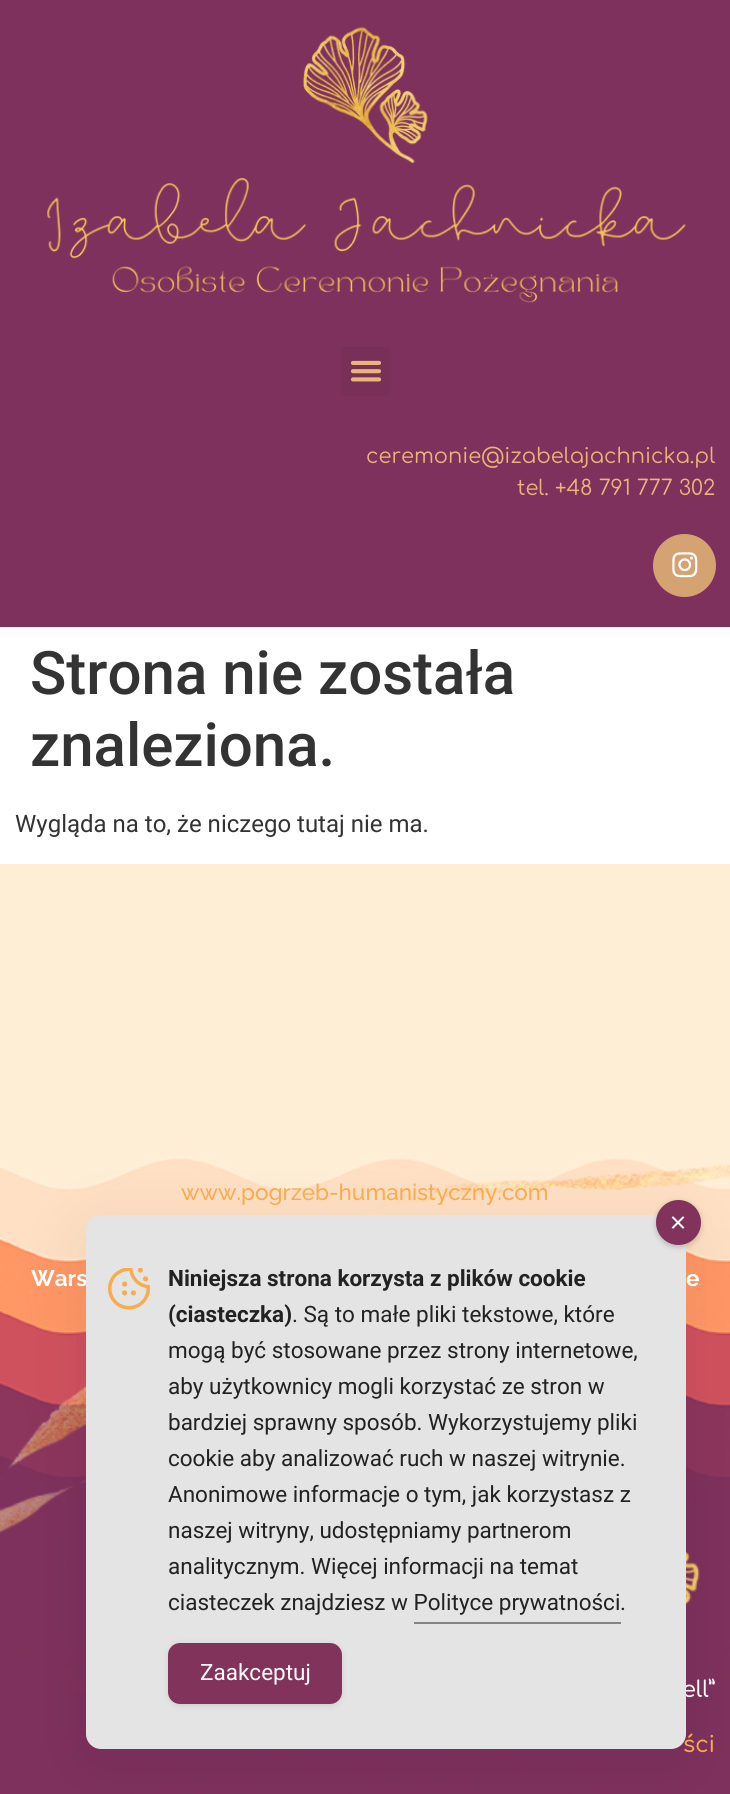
#include <cairo/cairo.h>
#include <math.h>
#include <stddef.h>

static cairo_t *cr;

static void use_color(int r, int g, int b) {
  cairo_set_source_rgb(cr, r / 255.0, g / 255.0, b / 255.0);
}

static void text(double x, double y, const char *s, const char *family, double size, int italic, int bold, int r, int g, int b) {
  cairo_select_font_face(cr, family, italic ? CAIRO_FONT_SLANT_ITALIC : CAIRO_FONT_SLANT_NORMAL,
    bold ? CAIRO_FONT_WEIGHT_BOLD : CAIRO_FONT_WEIGHT_NORMAL);
  cairo_set_font_size(cr, size);
  use_color(r, g, b);
  cairo_move_to(cr, x, y);
  cairo_show_text(cr, s);
}

static void box(double x, double y, double w, double h, int r, int g, int b) {
  use_color(r, g, b);
  cairo_rectangle(cr, x, y, w, h);
  cairo_fill(cr);
}

static void round_rect(double x, double y, double w, double h, double r) {
  cairo_new_sub_path(cr);
  cairo_arc(cr, x + w - r, y + h - r, r, 0, M_PI / 2);
  cairo_arc(cr, x + r, y + h - r, r, M_PI / 2, M_PI);
  cairo_arc(cr, x + r, y + r, r, M_PI, 1.5 * M_PI);
  cairo_arc(cr, x + w - r, y + r, r, 1.5 * M_PI, 2 * M_PI);
  cairo_close_path(cr);
}

static void shadow(double x, double y, double w, double h, double r, double blur, double alpha) {
  cairo_push_group_with_content(cr, CAIRO_CONTENT_ALPHA);
  cairo_set_operator(cr, CAIRO_OPERATOR_SOURCE);
  for (int i = 15; i >= -15 && fmin(w, h) + blur * i / 3 > 0; i -= 2) {
    double e = blur * i / 6;
    cairo_set_source_rgba(cr, 0, 0, 0, alpha * erfc((i - 1) / 8.5) / 2);
    round_rect(x - e, y - e, w + 2 * e, h + 2 * e, fmax(0, fmin(r + e + blur * .6, fmin(w, h) / 2 + e)));
    cairo_fill(cr);
  }
  cairo_pattern_t *soft = cairo_pop_group(cr);
  cairo_mask(cr, soft);
  cairo_pattern_destroy(soft);
}

static void picture(const char *path, double x, double y, double w, double h) {
  cairo_surface_t *image = cairo_image_surface_create_from_png(path);
  cairo_save(cr);
  cairo_set_source_surface(cr, image, x, y);
  cairo_rectangle(cr, x, y, w, h);
  cairo_fill(cr);
  cairo_restore(cr);
  cairo_surface_destroy(image);
}

static void draw(void) {
  use_color(255, 255, 255);
  cairo_paint(cr);
  box(0, 0, 730, 627, 126, 49, 93);
  picture("img_01.png", 47, 27, 639, 276);
  use_color(120, 47, 88);
  round_rect(341, 347, 49, 49, 5);
  cairo_fill(cr);
  picture("img_02.png", 350, 360, 32, 22);
  use_color(213, 163, 113);
  cairo_arc(cr, 684.5, 565.5, 31.5, 0, 2 * M_PI);
  cairo_fill(cr);
  picture("img_03.png", 672, 552, 26, 26);
  picture("img_04.png", 0, 864, 730, 930);
  picture("img_05.png", 0, 1164, 730, 369);
  picture("img_06.png", 686, 1551, 14, 53);
  use_color(0, 0, 0);
  shadow(71, 1215, 630, 564, 30, 30, 0.05);
  text(366, 463, "ceremonie@izabelajachnicka.pl", "Comfortaa", 21, 0, 0, 234, 181, 118);
  text(517, 495, "tel. +48 791 777 302", "Comfortaa", 21, 0, 0, 234, 181, 118);
  text(30, 694, "Strona nie została", "Roboto Medium", 60, 0, 0, 51, 51, 51);
  text(30, 766, "znaleziona.", "Roboto Medium", 60, 0, 0, 51, 51, 51);
  text(15, 832, "Wygląda na to, że niczego tutaj nie ma.", "Roboto", 24, 0, 0, 51, 51, 51);
  text(181, 1200, "www.pogrzeb-humanistyczny.com", "Raleway Medium", 22.5, 0, 0, 248, 172, 80);
  text(31, 1286, "Wars", "Raleway", 22.5, 0, 1, 255, 255, 255);
  text(686, 1286, "e", "Raleway", 22.5, 0, 1, 255, 255, 255);
  text(682, 1697, "ell”", "Comfortaa Medium", 22.5, 0, 0, 255, 255, 255);
  text(683, 1752, "ści", "Comfortaa Medium", 22.5, 0, 0, 248, 172, 80);
  use_color(228, 228, 228);
  round_rect(86, 1215, 600, 534, 15);
  cairo_fill(cr);
  use_color(0, 0, 0);
  shadow(656, 1202, 45, 45, 22.5, 3, 0.2);
  use_color(130, 51, 91);
  cairo_arc(cr, 678.5, 1222.5, 22.5, 0, 2 * M_PI);
  cairo_fill(cr);
  picture("img_07.png", 671, 1216, 14, 13);
  picture("img_08.png", 108, 1268, 42, 42);
  text(168, 1286, "Niniejsza strona korzysta z plików cookie", "Roboto", 22.5, 0, 1, 34, 34, 34);
  text(168, 1322, "(ciasteczka)", "Roboto", 22.5, 0, 1, 34, 34, 34);
  text(292, 1322, ". Są to małe pliki tekstowe, które", "Roboto", 22.5, 0, 0, 34, 34, 34);
  text(168, 1358, "mogą być stosowane przez strony internetowe,", "Roboto", 22.5, 0, 0, 34, 34, 34);
  text(168, 1394, "aby użytkownicy mogli korzystać ze stron w", "Roboto", 22.5, 0, 0, 34, 34, 34);
  text(168, 1430, "bardziej sprawny sposób. Wykorzystujemy pliki", "Roboto", 22.5, 0, 0, 34, 34, 34);
  text(168, 1466, "cookie aby analizować ruch w naszej witrynie.", "Roboto", 22.5, 0, 0, 34, 34, 34);
  text(168, 1502, "Anonimowe informacje o tym, jak korzystasz z", "Roboto", 22.5, 0, 0, 34, 34, 34);
  text(168, 1538, "naszej witryny, udostępniamy partnerom", "Roboto", 22.5, 0, 0, 34, 34, 34);
  text(168, 1574, "analitycznym. Więcej informacji na temat", "Roboto", 22.5, 0, 0, 34, 34, 34);
  text(168, 1610, "ciasteczek znajdziesz w Polityce prywatności", "Roboto", 22.5, 0, 0, 34, 34, 34);
  text(620, 1610, ".", "Roboto", 22.5, 0, 0, 34, 34, 34);
  box(414, 1622, 207, 2, 131, 131, 131);
  use_color(0, 0, 0);
  shadow(168, 1644, 174, 62, 12, 3, 0.1);
  use_color(130, 51, 91);
  round_rect(169, 1644, 172, 59, 11);
  cairo_fill_preserve(cr);
  cairo_stroke(cr);
  text(200, 1680, "Zaakceptuj", "Roboto", 22.5, 0, 0, 255, 255, 255);
}

int main(void) {
  cairo_surface_t *surface = cairo_image_surface_create(CAIRO_FORMAT_RGB24, 730, 1794);
  cr = cairo_create(surface);
  cairo_font_options_t *options = cairo_font_options_create();
  cairo_font_options_set_hint_metrics(options, CAIRO_HINT_METRICS_OFF);
  cairo_font_options_set_hint_style(options, CAIRO_HINT_STYLE_NONE);
  cairo_set_font_options(cr, options);
  cairo_set_miter_limit(cr, 4);
  draw();
  cairo_surface_write_to_png(surface, "out.png");
  cairo_font_options_destroy(options);
  cairo_destroy(cr);
  cairo_surface_destroy(surface);
  return 0;
}
